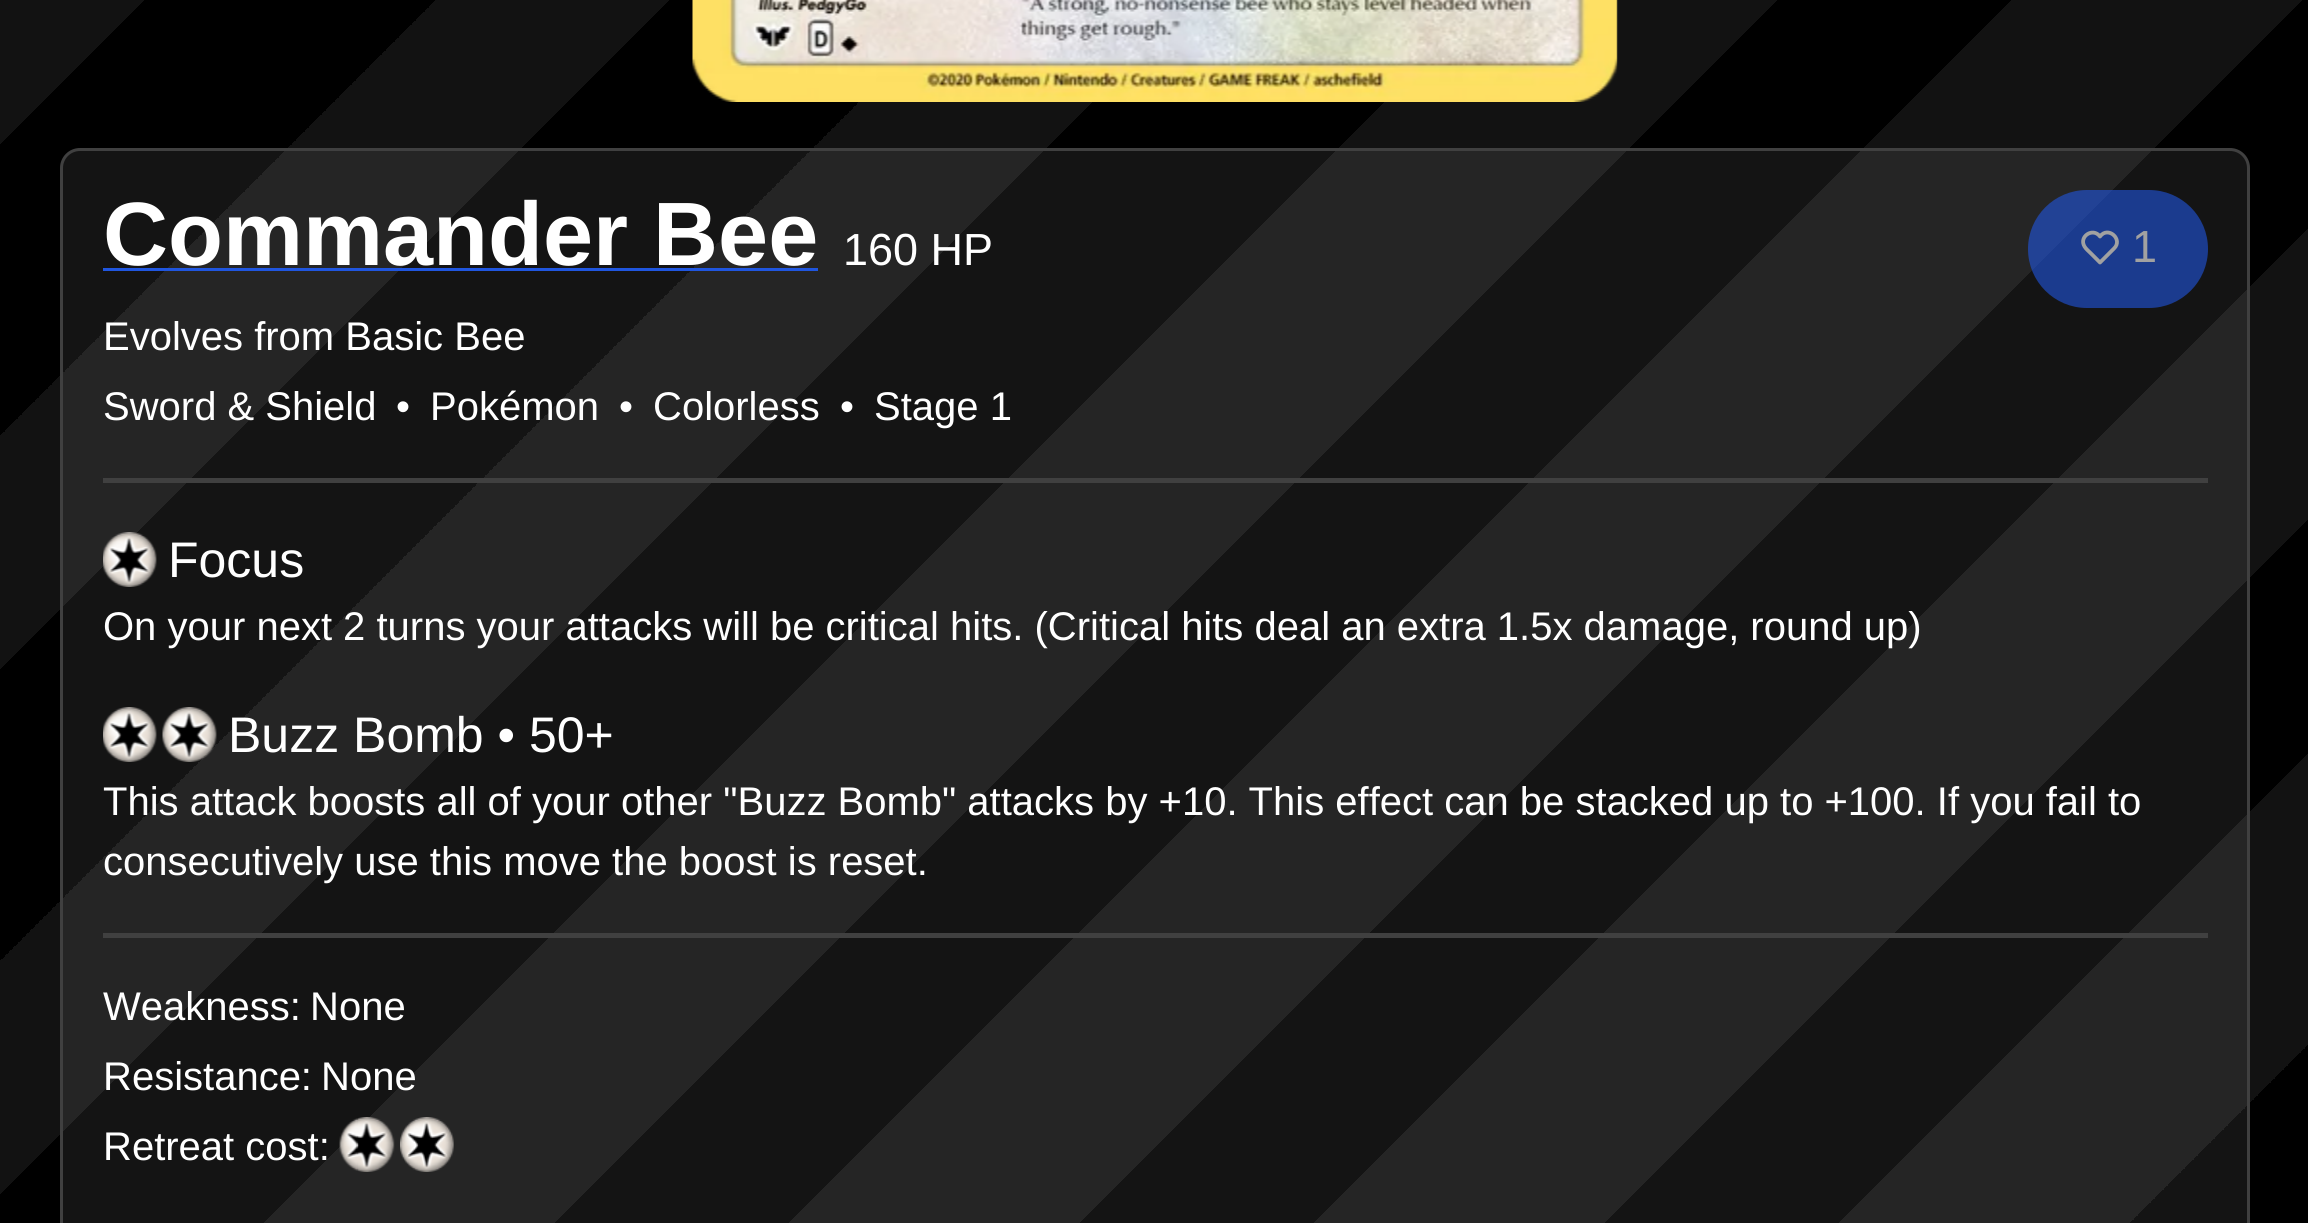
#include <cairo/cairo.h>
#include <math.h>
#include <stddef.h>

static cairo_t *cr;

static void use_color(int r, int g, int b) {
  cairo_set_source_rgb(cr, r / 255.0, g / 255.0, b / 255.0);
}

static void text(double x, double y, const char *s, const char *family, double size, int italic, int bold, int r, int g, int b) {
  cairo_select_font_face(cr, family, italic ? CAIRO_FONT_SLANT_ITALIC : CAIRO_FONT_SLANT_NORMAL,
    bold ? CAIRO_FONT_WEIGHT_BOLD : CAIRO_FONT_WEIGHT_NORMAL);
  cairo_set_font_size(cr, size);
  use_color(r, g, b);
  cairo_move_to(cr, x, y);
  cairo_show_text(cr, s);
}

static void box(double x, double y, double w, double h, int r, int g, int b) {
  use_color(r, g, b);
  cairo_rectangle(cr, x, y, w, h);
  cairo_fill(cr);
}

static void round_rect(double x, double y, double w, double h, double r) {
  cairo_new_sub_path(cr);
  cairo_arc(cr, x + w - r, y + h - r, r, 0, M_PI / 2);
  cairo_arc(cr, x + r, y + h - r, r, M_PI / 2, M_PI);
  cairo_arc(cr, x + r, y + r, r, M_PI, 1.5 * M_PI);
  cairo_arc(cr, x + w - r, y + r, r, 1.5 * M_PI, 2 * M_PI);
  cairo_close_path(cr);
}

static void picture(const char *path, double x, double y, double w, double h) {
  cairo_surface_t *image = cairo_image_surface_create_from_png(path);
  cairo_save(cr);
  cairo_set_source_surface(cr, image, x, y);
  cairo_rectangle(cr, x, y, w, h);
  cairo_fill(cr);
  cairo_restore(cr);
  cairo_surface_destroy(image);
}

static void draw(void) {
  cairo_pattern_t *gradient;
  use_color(255, 255, 255);
  cairo_paint(cr);
  gradient = cairo_pattern_create_linear(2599, 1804, -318, -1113);
  cairo_pattern_add_color_stop_rgba(gradient, 0, 0.071, 0.071, 0.071, 1);
  cairo_pattern_add_color_stop_rgba(gradient, 0.05, 0.071, 0.071, 0.071, 1);
  cairo_pattern_add_color_stop_rgba(gradient, 0.05, 0, 0, 0, 1);
  cairo_pattern_add_color_stop_rgba(gradient, 0.09, 0, 0, 0, 1);
  cairo_pattern_add_color_stop_rgba(gradient, 0.09, 0.071, 0.071, 0.071, 1);
  cairo_pattern_add_color_stop_rgba(gradient, 0.14, 0.071, 0.071, 0.071, 1);
  cairo_pattern_add_color_stop_rgba(gradient, 0.14, 0, 0, 0, 1);
  cairo_pattern_add_color_stop_rgba(gradient, 0.18, 0, 0, 0, 1);
  cairo_pattern_add_color_stop_rgba(gradient, 0.18, 0.071, 0.071, 0.071, 1);
  cairo_pattern_add_color_stop_rgba(gradient, 0.23, 0.071, 0.071, 0.071, 1);
  cairo_pattern_add_color_stop_rgba(gradient, 0.23, 0, 0, 0, 1);
  cairo_pattern_add_color_stop_rgba(gradient, 0.27, 0, 0, 0, 1);
  cairo_pattern_add_color_stop_rgba(gradient, 0.27, 0.071, 0.071, 0.071, 1);
  cairo_pattern_add_color_stop_rgba(gradient, 0.32, 0.071, 0.071, 0.071, 1);
  cairo_pattern_add_color_stop_rgba(gradient, 0.32, 0, 0, 0, 1);
  cairo_pattern_add_color_stop_rgba(gradient, 0.36, 0, 0, 0, 1);
  cairo_pattern_add_color_stop_rgba(gradient, 0.36, 0.071, 0.071, 0.071, 1);
  cairo_pattern_add_color_stop_rgba(gradient, 0.41, 0.071, 0.071, 0.071, 1);
  cairo_pattern_add_color_stop_rgba(gradient, 0.41, 0, 0, 0, 1);
  cairo_pattern_add_color_stop_rgba(gradient, 0.45, 0, 0, 0, 1);
  cairo_pattern_add_color_stop_rgba(gradient, 0.45, 0.071, 0.071, 0.071, 1);
  cairo_pattern_add_color_stop_rgba(gradient, 0.5, 0.071, 0.071, 0.071, 1);
  cairo_pattern_add_color_stop_rgba(gradient, 0.5, 0, 0, 0, 1);
  cairo_pattern_add_color_stop_rgba(gradient, 0.55, 0, 0, 0, 1);
  cairo_pattern_add_color_stop_rgba(gradient, 0.55, 0.071, 0.071, 0.071, 1);
  cairo_pattern_add_color_stop_rgba(gradient, 0.59, 0.071, 0.071, 0.071, 1);
  cairo_pattern_add_color_stop_rgba(gradient, 0.59, 0, 0, 0, 1);
  cairo_pattern_add_color_stop_rgba(gradient, 0.64, 0, 0, 0, 1);
  cairo_pattern_add_color_stop_rgba(gradient, 0.64, 0.071, 0.071, 0.071, 1);
  cairo_pattern_add_color_stop_rgba(gradient, 0.68, 0.071, 0.071, 0.071, 1);
  cairo_pattern_add_color_stop_rgba(gradient, 0.68, 0, 0, 0, 1);
  cairo_pattern_add_color_stop_rgba(gradient, 0.73, 0, 0, 0, 1);
  cairo_pattern_add_color_stop_rgba(gradient, 0.73, 0.071, 0.071, 0.071, 1);
  cairo_pattern_add_color_stop_rgba(gradient, 0.77, 0.071, 0.071, 0.071, 1);
  cairo_pattern_add_color_stop_rgba(gradient, 0.77, 0, 0, 0, 1);
  cairo_pattern_add_color_stop_rgba(gradient, 0.82, 0, 0, 0, 1);
  cairo_pattern_add_color_stop_rgba(gradient, 0.82, 0.071, 0.071, 0.071, 1);
  cairo_pattern_add_color_stop_rgba(gradient, 0.86, 0.071, 0.071, 0.071, 1);
  cairo_pattern_add_color_stop_rgba(gradient, 0.86, 0, 0, 0, 1);
  cairo_pattern_add_color_stop_rgba(gradient, 0.91, 0, 0, 0, 1);
  cairo_pattern_add_color_stop_rgba(gradient, 0.91, 0.071, 0.071, 0.071, 1);
  cairo_pattern_add_color_stop_rgba(gradient, 0.95, 0.071, 0.071, 0.071, 1);
  cairo_pattern_add_color_stop_rgba(gradient, 0.95, 0, 0, 0, 1);
  cairo_pattern_add_color_stop_rgba(gradient, 1, 0, 0, 0, 1);
  cairo_set_source(cr, gradient);
  cairo_pattern_destroy(gradient);
  cairo_rectangle(cr, 0, 0, 2308, 1223);
  cairo_fill(cr);
  picture("img_01.png", 692, 0, 926, 102);
  cairo_set_source_rgba(cr, 1, 1, 1, 0.08);
  round_rect(61.5, 149.5, 2187, 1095, 18.5);
  cairo_fill_preserve(cr);
  use_color(64, 64, 64);
  cairo_set_line_width(cr, 3);
  cairo_stroke(cr);
  box(103, 268, 715, 3, 32, 86, 223);
  cairo_set_source_rgba(cr, 0.125, 0.337, 0.875, 0.6);
  round_rect(2028, 190, 180, 118, 59);
  cairo_fill(cr);
  cairo_new_path(cr);
  cairo_move_to(cr, 2114, 248.5);
  cairo_line_to(cr, 2100, 262.5);
  cairo_line_to(cr, 2090.5, 253);
  cairo_curve_to(cr, 2088.5, 251, 2086, 249, 2084.5, 246.5);
  cairo_curve_to(cr, 2078.5, 236.5, 2093, 227, 2100, 236.5);
  cairo_curve_to(cr, 2108, 225.5, 2123.5, 239.5, 2114, 248.5);
  use_color(161, 161, 161);
  cairo_set_line_width(cr, 3.8);
  cairo_set_line_cap(cr, CAIRO_LINE_CAP_ROUND);
  cairo_set_line_join(cr, CAIRO_LINE_JOIN_ROUND);
  cairo_stroke(cr);
  box(103, 478, 2105, 5, 64, 64, 64);
  picture("img_02.png", 103, 532, 54, 55);
  picture("img_03.png", 103, 707, 54, 55);
  picture("img_04.png", 162, 707, 55, 55);
  box(103, 933, 2105, 5, 64, 64, 64);
  picture("img_05.png", 339, 1117, 56, 55);
  picture("img_06.png", 400, 1117, 54, 55);
  text(103, 265, "Commander Bee", "Liberation Sans", 90, 0, 1, 255, 255, 255);
  text(843, 265, "160 HP", "Liberation Sans", 45, 0, 0, 255, 255, 255);
  text(2132, 262, "1", "Liberation Sans", 45, 0, 0, 161, 161, 161);
  text(103, 350, "Evolves from Basic Bee", "Liberation Sans", 40, 0, 0, 255, 255, 255);
  text(103, 420, "Sword & Shield", "Liberation Sans", 40, 0, 0, 255, 255, 255);
  text(396, 420, "•", "Liberation Sans", 40, 0, 0, 255, 255, 255);
  text(430, 420, "Pokémon", "Liberation Sans", 40, 0, 0, 255, 255, 255);
  text(619, 420, "•", "Liberation Sans", 40, 0, 0, 255, 255, 255);
  text(653, 420, "Colorless", "Liberation Sans", 40, 0, 0, 255, 255, 255);
  text(840, 420, "•", "Liberation Sans", 40, 0, 0, 255, 255, 255);
  text(874, 420, "Stage 1", "Liberation Sans", 40, 0, 0, 255, 255, 255);
  text(168, 577, "Focus", "Liberation Sans", 50, 0, 0, 255, 255, 255);
  text(103, 640, "On your next 2 turns your attacks will be critical hits. (Critical hits deal an extra 1.5x damage, round up)", "Liberation Sans", 40, 0, 0, 255, 255, 255);
  text(228, 752, "Buzz Bomb • 50+", "Liberation Sans", 50, 0, 0, 255, 255, 255);
  text(103, 815, "This attack boosts all of your other \"Buzz Bomb\" attacks by +10. This effect can be stacked up to +100. If you fail to", "Liberation Sans", 40, 0, 0, 255, 255, 255);
  text(103, 875, "consecutively use this move the boost is reset.", "Liberation Sans", 40, 0, 0, 255, 255, 255);
  text(103, 1020, "Weakness:", "Liberation Sans", 40, 0, 0, 255, 255, 255);
  text(310, 1020, "None", "Liberation Sans", 40, 0, 0, 255, 255, 255);
  text(103, 1090, "Resistance:", "Liberation Sans", 40, 0, 0, 255, 255, 255);
  text(321, 1090, "None", "Liberation Sans", 40, 0, 0, 255, 255, 255);
  text(103, 1160, "Retreat cost:", "Liberation Sans", 40, 0, 0, 255, 255, 255);
}

int main(void) {
  cairo_surface_t *surface = cairo_image_surface_create(CAIRO_FORMAT_RGB24, 2308, 1223);
  cr = cairo_create(surface);
  cairo_font_options_t *options = cairo_font_options_create();
  cairo_font_options_set_hint_metrics(options, CAIRO_HINT_METRICS_OFF);
  cairo_font_options_set_hint_style(options, CAIRO_HINT_STYLE_NONE);
  cairo_set_font_options(cr, options);
  cairo_set_miter_limit(cr, 4);
  draw();
  cairo_surface_write_to_png(surface, "out.png");
  cairo_font_options_destroy(options);
  cairo_destroy(cr);
  cairo_surface_destroy(surface);
  return 0;
}
